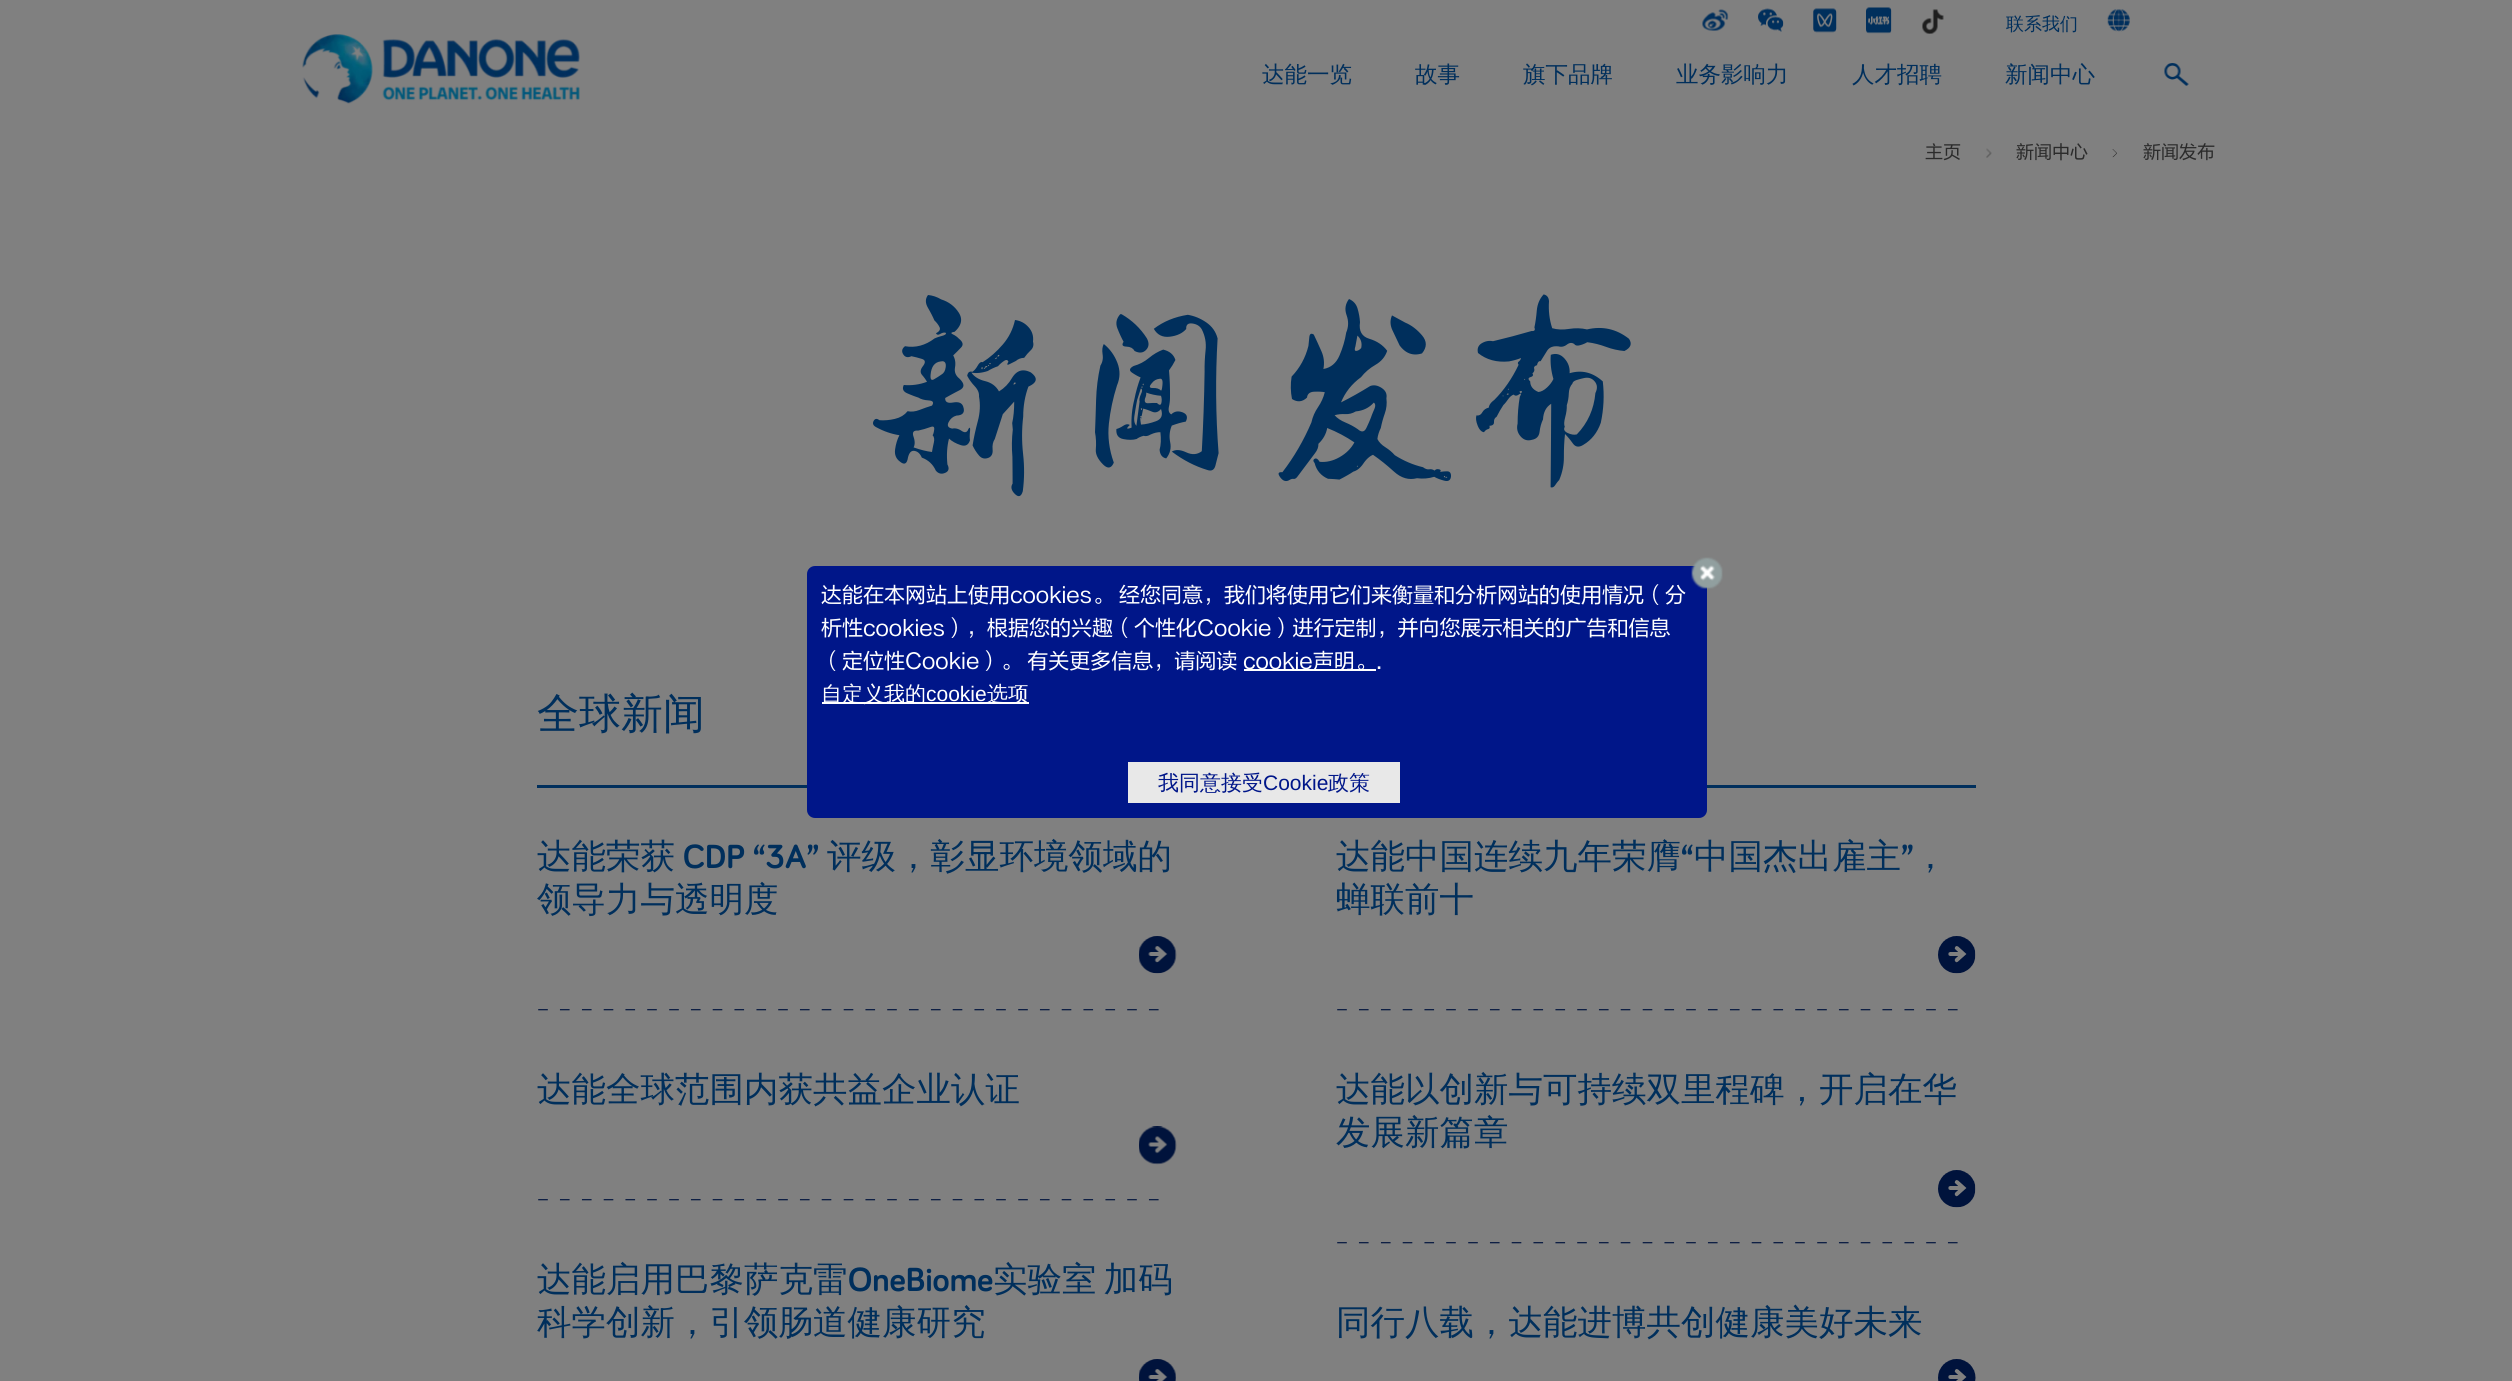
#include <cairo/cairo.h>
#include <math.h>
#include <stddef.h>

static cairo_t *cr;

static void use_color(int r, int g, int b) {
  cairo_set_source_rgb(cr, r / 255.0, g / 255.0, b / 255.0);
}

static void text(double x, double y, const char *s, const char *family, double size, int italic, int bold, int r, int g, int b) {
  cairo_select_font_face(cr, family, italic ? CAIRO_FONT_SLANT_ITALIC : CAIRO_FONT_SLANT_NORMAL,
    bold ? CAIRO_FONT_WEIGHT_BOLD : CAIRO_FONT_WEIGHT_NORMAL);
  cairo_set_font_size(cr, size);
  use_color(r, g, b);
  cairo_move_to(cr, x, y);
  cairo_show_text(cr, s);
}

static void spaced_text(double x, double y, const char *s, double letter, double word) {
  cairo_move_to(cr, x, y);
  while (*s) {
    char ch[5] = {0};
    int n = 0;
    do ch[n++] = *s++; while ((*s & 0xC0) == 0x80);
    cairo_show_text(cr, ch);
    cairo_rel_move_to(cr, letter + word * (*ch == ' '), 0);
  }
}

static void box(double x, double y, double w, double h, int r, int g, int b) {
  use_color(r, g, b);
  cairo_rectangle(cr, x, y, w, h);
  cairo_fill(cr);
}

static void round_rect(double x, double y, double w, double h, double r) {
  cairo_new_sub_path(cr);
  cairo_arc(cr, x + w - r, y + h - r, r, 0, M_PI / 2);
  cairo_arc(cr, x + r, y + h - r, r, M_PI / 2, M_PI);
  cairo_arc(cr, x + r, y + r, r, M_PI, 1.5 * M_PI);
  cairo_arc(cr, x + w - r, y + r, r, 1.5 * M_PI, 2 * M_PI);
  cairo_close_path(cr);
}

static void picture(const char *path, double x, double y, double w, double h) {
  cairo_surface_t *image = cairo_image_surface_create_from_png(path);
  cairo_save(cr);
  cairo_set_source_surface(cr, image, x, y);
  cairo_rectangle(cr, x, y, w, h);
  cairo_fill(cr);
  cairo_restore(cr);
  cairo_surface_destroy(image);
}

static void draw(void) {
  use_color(128, 128, 128);
  cairo_paint(cr);
  picture("img_01.png", 302, 34, 278, 70);
  picture("img_02.png", 1702, 9, 27, 22);
  picture("img_03.png", 1758, 8, 26, 24);
  picture("img_04.png", 1813, 8, 24, 25);
  picture("img_05.png", 1866, 7, 26, 27);
  picture("img_06.png", 1922, 9, 22, 25);
  picture("img_07.png", 2107, 9, 23, 23);
  picture("img_08.png", 2164, 63, 25, 23);
  picture("img_09.png", 1986, 148, 6, 10);
  picture("img_10.png", 2112, 149, 5, 9);
  box(537, 785, 270, 3, 0, 47, 92);
  picture("img_11.png", 1139, 936, 38, 38);
  picture("img_12.png", 1139, 1126, 38, 39);
  picture("img_13.png", 1139, 1359, 37, 22);
  box(1707, 785, 269, 3, 0, 47, 92);
  picture("img_14.png", 1938, 936, 38, 38);
  picture("img_14.png", 1938, 1170, 38, 38);
  picture("img_15.png", 1938, 1359, 38, 22);
  use_color(0, 22, 137);
  round_rect(807, 566, 900, 252, 8);
  cairo_fill(cr);
  picture("img_16.png", 1691, 557, 32, 32);
  box(1244, 669, 132, 2, 255, 255, 255);
  box(822, 702, 207, 2, 255, 255, 255);
  box(1128, 762, 272, 41, 232, 232, 232);
  text(2006, 30, "联系我们", "WenQuanYi Zen Hei Medium", 18, 0, 0, 0, 47, 92);
  text(1262, 82, "达能一览", "WenQuanYi Zen Hei Medium", 22.5, 0, 0, 0, 47, 92);
  text(1415, 82, "故事", "WenQuanYi Zen Hei Medium", 22.5, 0, 0, 0, 47, 92);
  text(1523, 82, "旗下品牌", "WenQuanYi Zen Hei Medium", 22.5, 0, 0, 0, 47, 92);
  text(1676, 82, "业务影响力", "WenQuanYi Zen Hei Medium", 22.5, 0, 0, 0, 47, 92);
  text(1852, 82, "人才招聘", "WenQuanYi Zen Hei Medium", 22.5, 0, 0, 0, 47, 92);
  text(2005, 82, "新闻中心", "WenQuanYi Zen Hei Medium", 22.5, 0, 0, 0, 47, 92);
  text(1925, 158, "主页", "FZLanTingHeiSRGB", 18, 0, 0, 43, 43, 43);
  text(2016, 158, "新闻中心", "FZLanTingHeiSRGB", 18, 0, 0, 43, 43, 43);
  text(2143, 158, "新闻发布", "FZLanTingHeiSRGB", 18, 0, 0, 43, 43, 43);
  text(856, 460, "新闻发布", "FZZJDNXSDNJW", 200, 0, 0, 0, 47, 92);
  text(537, 728, "全球新闻", "WenQuanYi Zen Hei Medium", 42, 0, 0, 0, 47, 92);
  text(537, 868, "达能荣获", "WenQuanYi Zen Hei Medium", 34.5, 0, 0, 0, 47, 92);
  text(683, 868, "CDP “3A”", "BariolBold", 34.5, 0, 1, 0, 47, 92);
  text(827, 868, "评级，彰显环境领域的", "WenQuanYi Zen Hei Medium", 34.5, 0, 0, 0, 47, 92);
  text(537, 911, "领导力与透明度", "WenQuanYi Zen Hei Medium", 34.5, 0, 0, 0, 47, 92);
  cairo_select_font_face(cr, "FZLanTingHeiSRGB", CAIRO_FONT_SLANT_NORMAL, CAIRO_FONT_WEIGHT_NORMAL);
  cairo_set_font_size(cr, 18);
  use_color(0, 19, 60);
  spaced_text(537, 1016, "- - - - - - - - - - - - - - - - - - - - - - - - - - - - -", 2.4, 0);
  text(537, 1101, "达能全球范围内获共益企业认证", "WenQuanYi Zen Hei Medium", 34.5, 0, 0, 0, 47, 92);
  cairo_select_font_face(cr, "FZLanTingHeiSRGB", CAIRO_FONT_SLANT_NORMAL, CAIRO_FONT_WEIGHT_NORMAL);
  cairo_set_font_size(cr, 18);
  use_color(0, 19, 60);
  spaced_text(537, 1206, "- - - - - - - - - - - - - - - - - - - - - - - - - - - - -", 2.4, 0);
  text(537, 1291, "达能启用巴黎萨克雷", "WenQuanYi Zen Hei Medium", 34.5, 0, 0, 0, 47, 92);
  text(848, 1291, "OneBiome", "BariolBold", 34.5, 0, 1, 0, 47, 92);
  cairo_select_font_face(cr, "WenQuanYi Zen Hei Medium", CAIRO_FONT_SLANT_NORMAL, CAIRO_FONT_WEIGHT_NORMAL);
  spaced_text(993, 1291, "实验室 加码", 0, -3);
  text(537, 1334, "科学创新，引领肠道健康研究", "WenQuanYi Zen Hei Medium", 34.5, 0, 0, 0, 47, 92);
  text(1336, 868, "达能中国连续九年荣膺", "WenQuanYi Zen Hei Medium", 34.5, 0, 0, 0, 47, 92);
  text(1681, 868, "“", "BariolBold", 34.5, 0, 1, 0, 47, 92);
  text(1694, 868, "中国杰出雇主", "WenQuanYi Zen Hei Medium", 34.5, 0, 0, 0, 47, 92);
  text(1901, 868, "”", "BariolBold", 34.5, 0, 1, 0, 47, 92);
  text(1913, 868, "，", "WenQuanYi Zen Hei Medium", 34.5, 0, 0, 0, 47, 92);
  text(1336, 911, "蝉联前十", "WenQuanYi Zen Hei Medium", 34.5, 0, 0, 0, 47, 92);
  cairo_select_font_face(cr, "FZLanTingHeiSRGB", CAIRO_FONT_SLANT_NORMAL, CAIRO_FONT_WEIGHT_NORMAL);
  cairo_set_font_size(cr, 18);
  use_color(0, 19, 60);
  spaced_text(1336, 1016, "- - - - - - - - - - - - - - - - - - - - - - - - - - - - -", 2.4, 0);
  text(1336, 1101, "达能以创新与可持续双里程碑，开启在华", "WenQuanYi Zen Hei Medium", 34.5, 0, 0, 0, 47, 92);
  text(1336, 1144, "发展新篇章", "WenQuanYi Zen Hei Medium", 34.5, 0, 0, 0, 47, 92);
  cairo_select_font_face(cr, "FZLanTingHeiSRGB", CAIRO_FONT_SLANT_NORMAL, CAIRO_FONT_WEIGHT_NORMAL);
  cairo_set_font_size(cr, 18);
  use_color(0, 19, 60);
  spaced_text(1336, 1249, "- - - - - - - - - - - - - - - - - - - - - - - - - - - - -", 2.4, 0);
  text(1336, 1334, "同行八载，达能进博共创健康美好未来", "WenQuanYi Zen Hei Medium", 34.5, 0, 0, 0, 47, 92);
  text(821, 602, "达能在本网站上使用cookies。 经您同意，我们将使用它们来衡量和分析网站的使用情况（分", "FZLanTingHeiSRGB", 21, 0, 0, 255, 255, 255);
  text(821, 635, "析性cookies），根据您的兴趣（个性化Cookie）进行定制，并向您展示相关的广告和信息", "FZLanTingHeiSRGB", 21, 0, 0, 255, 255, 255);
  text(821, 668, "（定位性Cookie）。 有关更多信息，请阅读", "FZLanTingHeiSRGB", 21, 0, 0, 255, 255, 255);
  text(1243, 668, "cookie声明。.", "FZLanTingHeiSRGB", 21, 0, 0, 255, 255, 255);
  text(821, 701, "自定义我的", "WenQuanYi Zen Hei Medium", 21, 0, 0, 255, 255, 255);
  text(926, 701, "cookie", "Liberation Sans", 21, 0, 0, 255, 255, 255);
  text(987, 701, "选项", "WenQuanYi Zen Hei Medium", 21, 0, 0, 255, 255, 255);
  text(1158, 790, "我同意接受", "WenQuanYi Zen Hei Medium", 21, 0, 0, 0, 22, 137);
  text(1263, 790, "Cookie", "Liberation Sans", 21, 0, 0, 0, 22, 137);
  text(1328, 790, "政策", "WenQuanYi Zen Hei Medium", 21, 0, 0, 0, 22, 137);
}

int main(void) {
  cairo_surface_t *surface = cairo_image_surface_create(CAIRO_FORMAT_RGB24, 2512, 1381);
  cr = cairo_create(surface);
  cairo_font_options_t *options = cairo_font_options_create();
  cairo_font_options_set_hint_metrics(options, CAIRO_HINT_METRICS_OFF);
  cairo_font_options_set_hint_style(options, CAIRO_HINT_STYLE_NONE);
  cairo_set_font_options(cr, options);
  cairo_set_miter_limit(cr, 4);
  draw();
  cairo_surface_write_to_png(surface, "out.png");
  cairo_font_options_destroy(options);
  cairo_destroy(cr);
  cairo_surface_destroy(surface);
  return 0;
}
